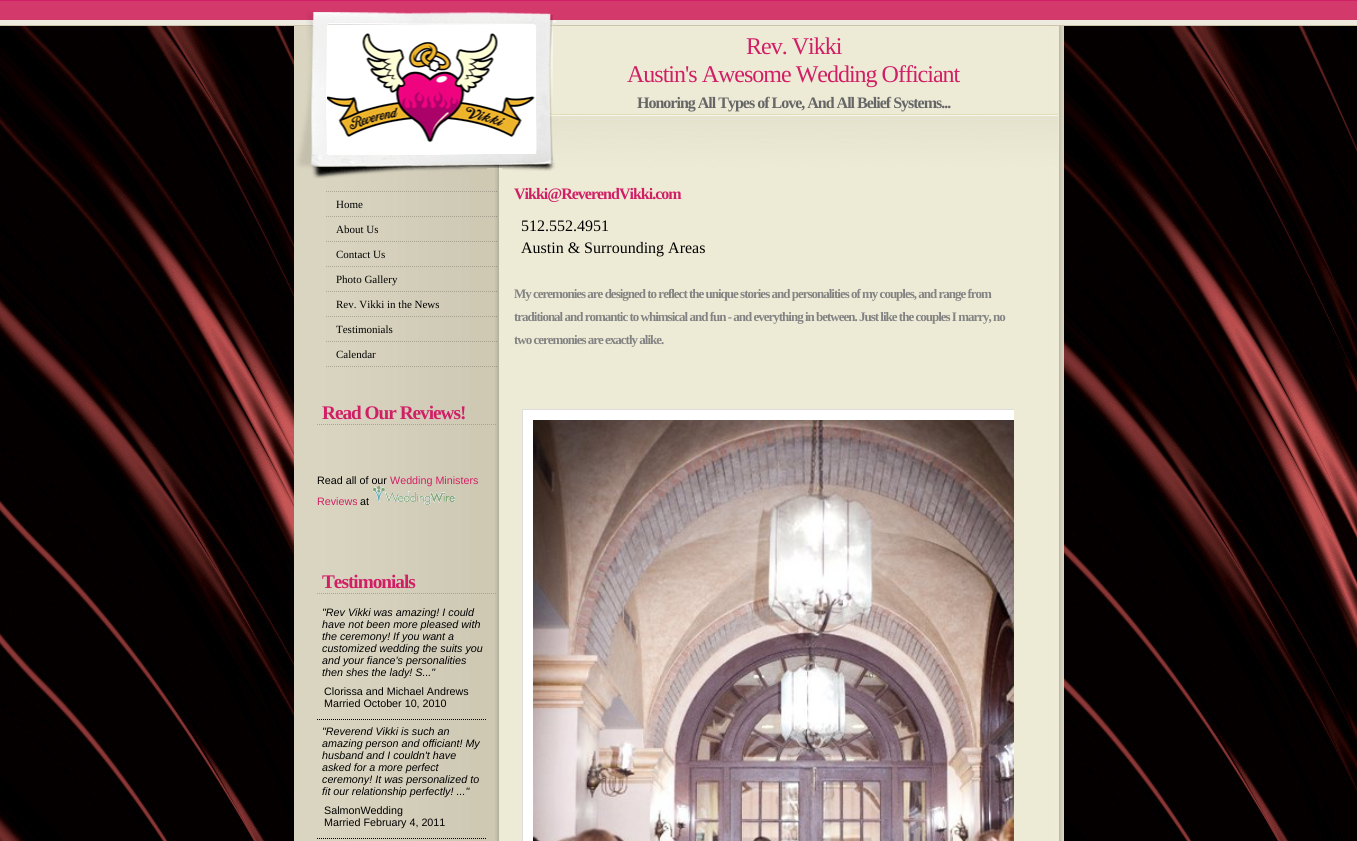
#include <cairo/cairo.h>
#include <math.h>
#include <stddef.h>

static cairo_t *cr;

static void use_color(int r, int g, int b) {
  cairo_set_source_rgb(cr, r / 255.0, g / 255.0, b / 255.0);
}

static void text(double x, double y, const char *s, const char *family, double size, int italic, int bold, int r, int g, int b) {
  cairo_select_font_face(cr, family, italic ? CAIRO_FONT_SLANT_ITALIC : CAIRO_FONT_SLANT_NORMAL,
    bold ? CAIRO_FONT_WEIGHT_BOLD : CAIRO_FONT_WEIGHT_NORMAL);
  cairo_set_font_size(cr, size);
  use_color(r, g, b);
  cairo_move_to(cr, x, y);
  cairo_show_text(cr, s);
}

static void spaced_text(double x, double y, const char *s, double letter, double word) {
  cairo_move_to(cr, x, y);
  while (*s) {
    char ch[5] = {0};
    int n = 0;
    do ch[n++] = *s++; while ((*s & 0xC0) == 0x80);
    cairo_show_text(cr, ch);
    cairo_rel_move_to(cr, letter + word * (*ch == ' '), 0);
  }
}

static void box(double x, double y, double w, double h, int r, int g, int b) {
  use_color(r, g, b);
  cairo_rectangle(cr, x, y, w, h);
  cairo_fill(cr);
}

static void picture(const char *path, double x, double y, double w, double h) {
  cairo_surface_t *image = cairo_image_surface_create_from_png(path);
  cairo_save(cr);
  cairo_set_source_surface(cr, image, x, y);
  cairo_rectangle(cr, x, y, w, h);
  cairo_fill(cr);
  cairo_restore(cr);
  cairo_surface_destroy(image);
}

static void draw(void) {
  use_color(255, 255, 255);
  cairo_paint(cr);
  picture("img_01.png", 0, 26, 1357, 815);
  picture("img_02.png", 294, 26, 770, 815);
  picture("img_03.png", 0, 1, 1357, 25);
  box(0, 0, 1357, 1, 209, 31, 102);
  picture("img_04.png", 296, 9, 762, 170);
  picture("img_05.png", 327, 33, 209, 121);
  picture("img_06.png", 326, 191, 172, 1);
  picture("img_06.png", 326, 216, 172, 1);
  picture("img_06.png", 326, 241, 172, 1);
  picture("img_06.png", 326, 266, 172, 1);
  picture("img_06.png", 326, 291, 172, 1);
  picture("img_06.png", 326, 316, 172, 1);
  picture("img_06.png", 326, 341, 172, 1);
  picture("img_06.png", 326, 366, 172, 1);
  box(523, 410, 491, 431, 255, 255, 255);
  cairo_save(cr);
  cairo_rectangle(cr, 514, 389, 500, 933);
  cairo_clip(cr);
  cairo_rectangle(cr, 522.5, 409.5, 560, 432);
  use_color(221, 221, 221);
  cairo_set_line_width(cr, 1);
  cairo_stroke(cr);
  cairo_restore(cr);
  picture("img_07.png", 533, 420, 481, 421);
  cairo_new_path(cr);
  cairo_move_to(cr, 317, 424.5);
  cairo_line_to(cr, 497, 424.5);
  use_color(169, 164, 145);
  cairo_set_line_width(cr, 1);
  cairo_set_dash(cr, (double[]){1, 1}, 2, 0);
  cairo_stroke(cr);
  cairo_new_path(cr);
  cairo_move_to(cr, 317, 593.5);
  cairo_line_to(cr, 497, 593.5);
  cairo_stroke(cr);
  cairo_new_path(cr);
  cairo_move_to(cr, 317, 719.5);
  cairo_line_to(cr, 487, 719.5);
  use_color(0, 0, 0);
  cairo_stroke(cr);
  cairo_new_path(cr);
  cairo_move_to(cr, 317, 838.5);
  cairo_line_to(cr, 487, 838.5);
  cairo_stroke(cr);
  cairo_select_font_face(cr, "Liberation Serif", CAIRO_FONT_SLANT_NORMAL, CAIRO_FONT_WEIGHT_NORMAL);
  cairo_set_font_size(cr, 24);
  use_color(209, 31, 102);
  spaced_text(746, 54, "Rev. Vikki", -1, 0);
  spaced_text(627, 82, "Austin's Awesome Wedding Officiant", -1, 0);
  cairo_select_font_face(cr, "Liberation Serif", CAIRO_FONT_SLANT_NORMAL, CAIRO_FONT_WEIGHT_BOLD);
  cairo_set_font_size(cr, 16);
  use_color(102, 102, 102);
  spaced_text(637, 108, "Honoring All Types of Love, And All Belief Systems...", -1, 0);
  text(336, 208, "Home", "Liberation Serif", 11, 0, 0, 0, 0, 0);
  text(336, 233, "About Us", "Liberation Serif", 11, 0, 0, 0, 0, 0);
  text(336, 258, "Contact Us", "Liberation Serif", 11, 0, 0, 0, 0, 0);
  text(336, 283, "Photo Gallery", "Liberation Serif", 11, 0, 0, 0, 0, 0);
  text(336, 308, "Rev. Vikki in the News", "Liberation Serif", 11, 0, 0, 0, 0, 0);
  text(336, 333, "Testimonials", "Liberation Serif", 11, 0, 0, 0, 0, 0);
  text(336, 358, "Calendar", "Liberation Serif", 11, 0, 0, 0, 0, 0);
  cairo_select_font_face(cr, "Liberation Serif", CAIRO_FONT_SLANT_NORMAL, CAIRO_FONT_WEIGHT_BOLD);
  cairo_set_font_size(cr, 16);
  use_color(209, 31, 102);
  spaced_text(514, 199, "Vikki@ReverendVikki.com", -1, 0);
  text(521, 231, "512.552.4951", "Liberation Serif", 16, 0, 0, 0, 0, 0);
  text(521, 253, "Austin & Surrounding Areas", "Liberation Serif", 16, 0, 0, 0, 0, 0);
  cairo_select_font_face(cr, "Liberation Serif", CAIRO_FONT_SLANT_NORMAL, CAIRO_FONT_WEIGHT_BOLD);
  cairo_set_font_size(cr, 13);
  use_color(131, 131, 131);
  spaced_text(514, 298, "My ceremonies are designed to reflect the unique stories and personalities of my couples, and range from", -1, 0);
  spaced_text(514, 321, "traditional and romantic to whimsical and fun - and everything in between. Just like the couples I marry, no", -1, 0);
  spaced_text(514, 344, "two ceremonies are exactly alike.", -1, 0);
  cairo_set_font_size(cr, 19.25);
  use_color(209, 31, 102);
  spaced_text(322, 419, "Read Our Reviews!", -1, 0);
  text(317, 484, "Read all of our", "Liberation Sans", 10.75, 0, 0, 0, 0, 0);
  text(390, 484, "Wedding Ministers", "Liberation Sans", 10.75, 0, 0, 209, 31, 102);
  text(317, 505, "Reviews", "Liberation Sans", 10.75, 0, 0, 209, 31, 102);
  text(360, 505, "at", "Liberation Sans", 10.75, 0, 0, 0, 0, 0);
  picture("img_08.png", 372, 486, 83, 19);
  cairo_select_font_face(cr, "Liberation Serif", CAIRO_FONT_SLANT_NORMAL, CAIRO_FONT_WEIGHT_BOLD);
  cairo_set_font_size(cr, 19.25);
  use_color(209, 31, 102);
  spaced_text(322, 588, "Testimonials", -1, 0);
  text(322, 616, "\"Rev Vikki was amazing! I could", "Liberation Sans", 10.75, 1, 0, 0, 0, 0);
  text(322, 628, "have not been more pleased with", "Liberation Sans", 10.75, 1, 0, 0, 0, 0);
  text(322, 640, "the ceremony! If you want a", "Liberation Sans", 10.75, 1, 0, 0, 0, 0);
  text(322, 652, "customized wedding the suits you", "Liberation Sans", 10.75, 1, 0, 0, 0, 0);
  text(322, 664, "and your fiance's personalities", "Liberation Sans", 10.75, 1, 0, 0, 0, 0);
  text(322, 676, "then shes the lady! S...\"", "Liberation Sans", 10.75, 1, 0, 0, 0, 0);
  text(324, 695, "Clorissa and Michael Andrews", "Liberation Sans", 10.75, 0, 0, 0, 0, 0);
  text(324, 707, "Married October 10, 2010", "Liberation Sans", 10.75, 0, 0, 0, 0, 0);
  text(322, 735, "\"Reverend Vikki is such an", "Liberation Sans", 10.75, 1, 0, 0, 0, 0);
  text(322, 747, "amazing person and officiant! My", "Liberation Sans", 10.75, 1, 0, 0, 0, 0);
  text(322, 759, "husband and I couldn't have", "Liberation Sans", 10.75, 1, 0, 0, 0, 0);
  text(322, 771, "asked for a more perfect", "Liberation Sans", 10.75, 1, 0, 0, 0, 0);
  text(322, 783, "ceremony! It was personalized to", "Liberation Sans", 10.75, 1, 0, 0, 0, 0);
  text(322, 795, "fit our relationship perfectly! ...\"", "Liberation Sans", 10.75, 1, 0, 0, 0, 0);
  text(324, 814, "SalmonWedding", "Liberation Sans", 10.75, 0, 0, 0, 0, 0);
  text(324, 826, "Married February 4, 2011", "Liberation Sans", 10.75, 0, 0, 0, 0, 0);
}

int main(void) {
  cairo_surface_t *surface = cairo_image_surface_create(CAIRO_FORMAT_RGB24, 1357, 841);
  cr = cairo_create(surface);
  cairo_font_options_t *options = cairo_font_options_create();
  cairo_font_options_set_hint_metrics(options, CAIRO_HINT_METRICS_OFF);
  cairo_font_options_set_hint_style(options, CAIRO_HINT_STYLE_NONE);
  cairo_set_font_options(cr, options);
  cairo_set_miter_limit(cr, 4);
  draw();
  cairo_surface_write_to_png(surface, "out.png");
  cairo_font_options_destroy(options);
  cairo_destroy(cr);
  cairo_surface_destroy(surface);
  return 0;
}
